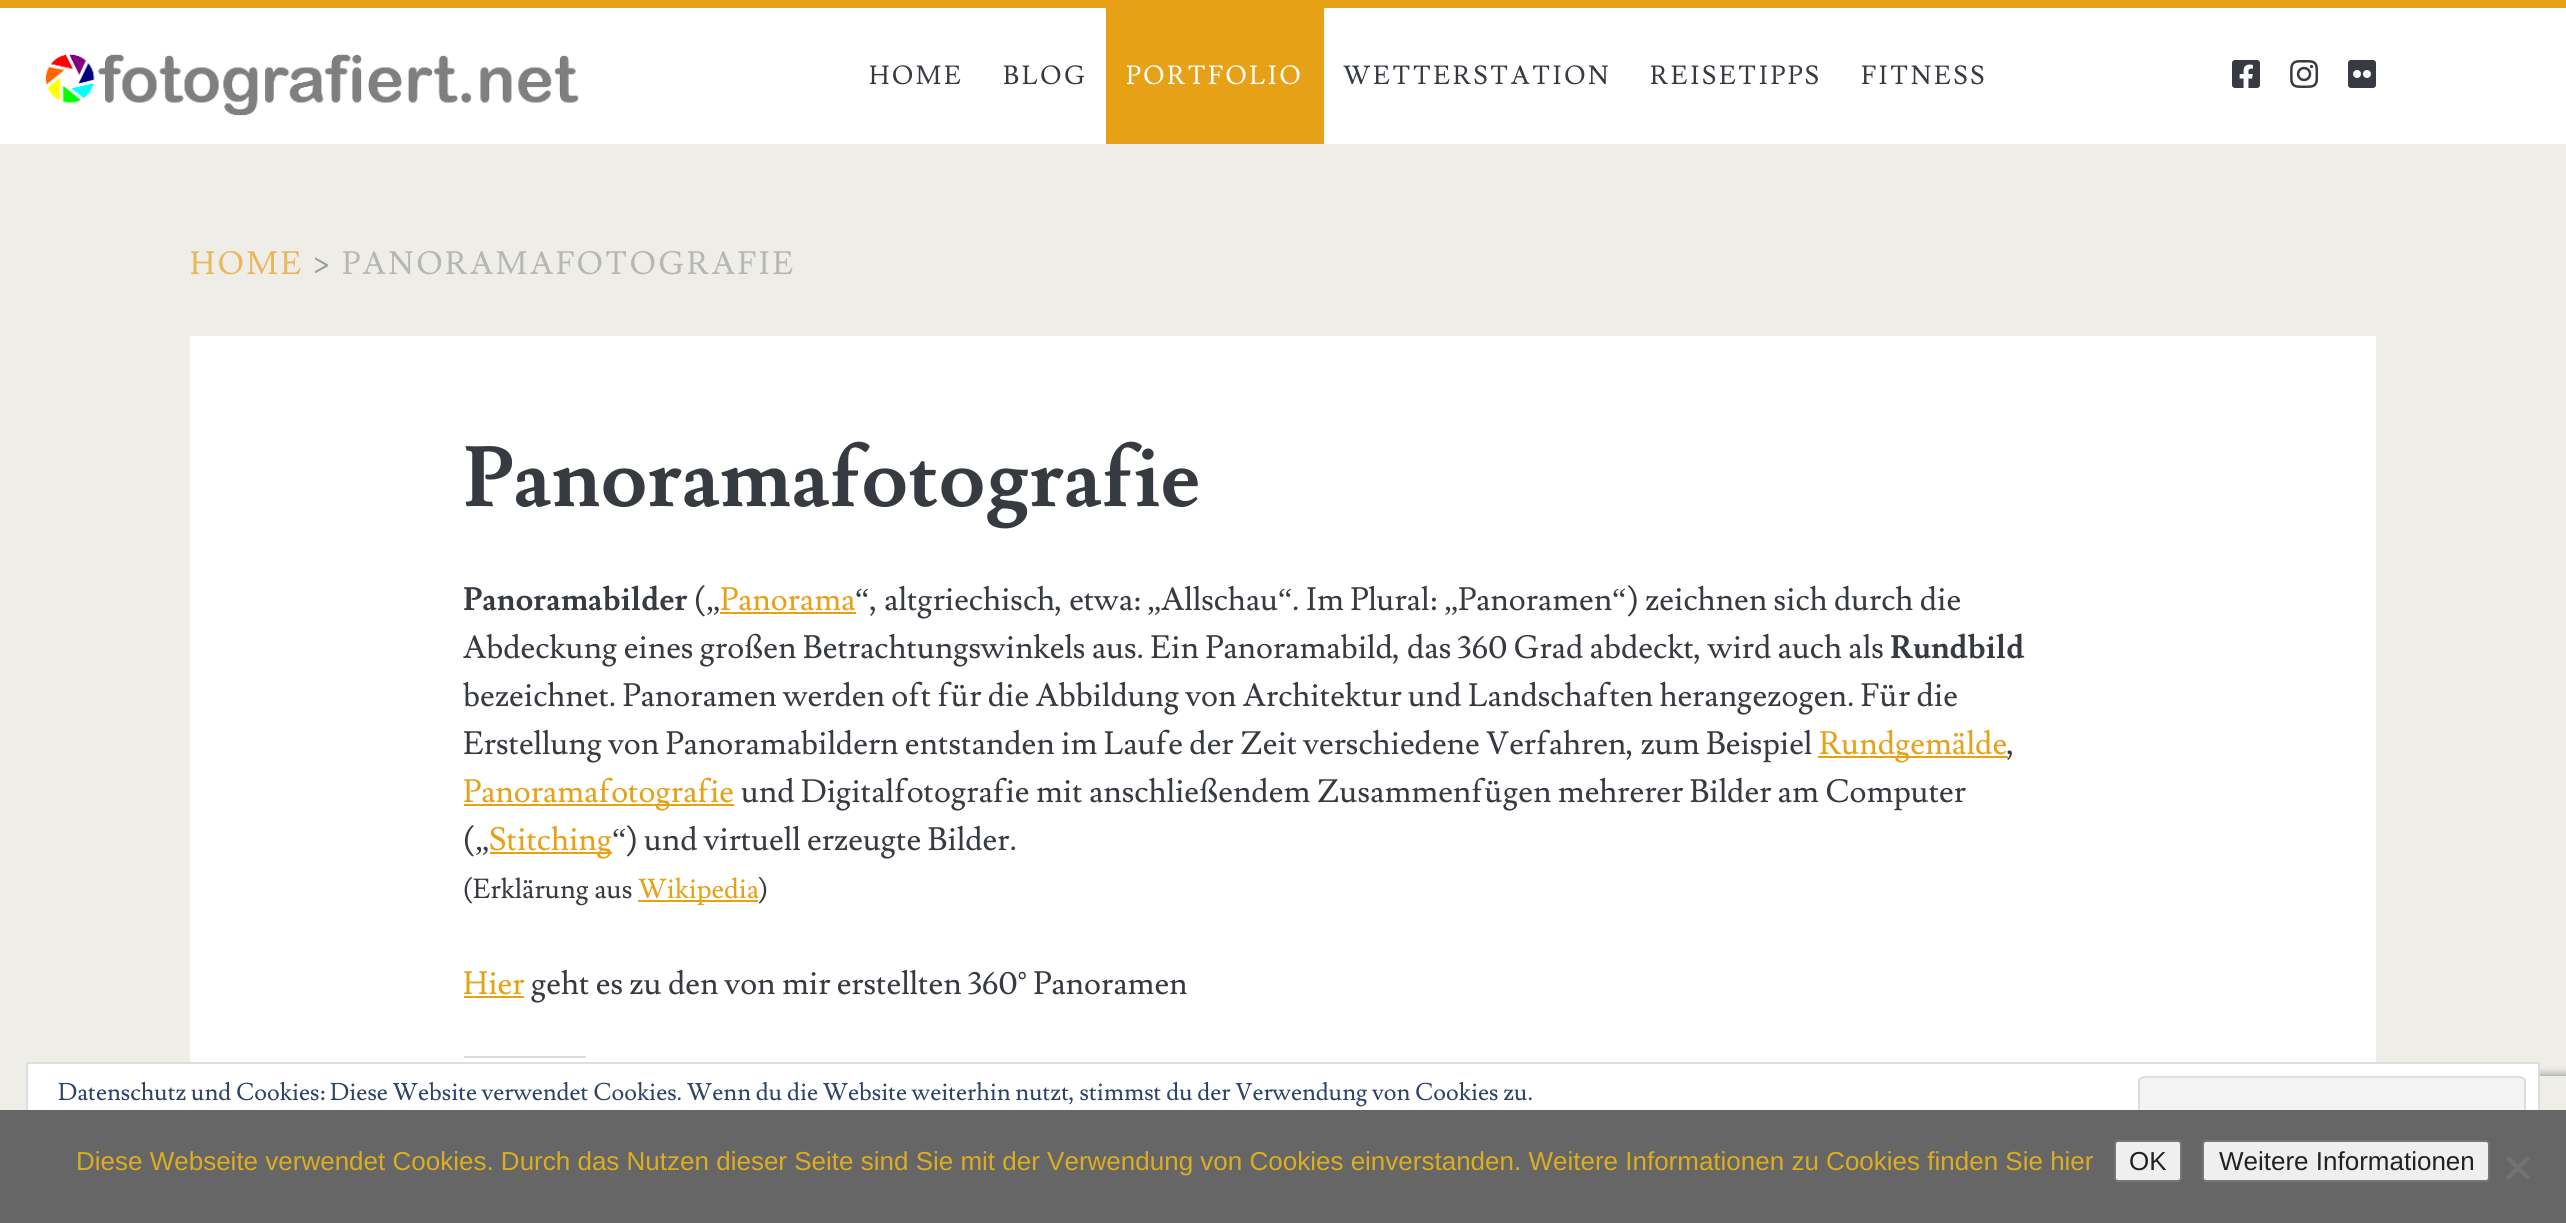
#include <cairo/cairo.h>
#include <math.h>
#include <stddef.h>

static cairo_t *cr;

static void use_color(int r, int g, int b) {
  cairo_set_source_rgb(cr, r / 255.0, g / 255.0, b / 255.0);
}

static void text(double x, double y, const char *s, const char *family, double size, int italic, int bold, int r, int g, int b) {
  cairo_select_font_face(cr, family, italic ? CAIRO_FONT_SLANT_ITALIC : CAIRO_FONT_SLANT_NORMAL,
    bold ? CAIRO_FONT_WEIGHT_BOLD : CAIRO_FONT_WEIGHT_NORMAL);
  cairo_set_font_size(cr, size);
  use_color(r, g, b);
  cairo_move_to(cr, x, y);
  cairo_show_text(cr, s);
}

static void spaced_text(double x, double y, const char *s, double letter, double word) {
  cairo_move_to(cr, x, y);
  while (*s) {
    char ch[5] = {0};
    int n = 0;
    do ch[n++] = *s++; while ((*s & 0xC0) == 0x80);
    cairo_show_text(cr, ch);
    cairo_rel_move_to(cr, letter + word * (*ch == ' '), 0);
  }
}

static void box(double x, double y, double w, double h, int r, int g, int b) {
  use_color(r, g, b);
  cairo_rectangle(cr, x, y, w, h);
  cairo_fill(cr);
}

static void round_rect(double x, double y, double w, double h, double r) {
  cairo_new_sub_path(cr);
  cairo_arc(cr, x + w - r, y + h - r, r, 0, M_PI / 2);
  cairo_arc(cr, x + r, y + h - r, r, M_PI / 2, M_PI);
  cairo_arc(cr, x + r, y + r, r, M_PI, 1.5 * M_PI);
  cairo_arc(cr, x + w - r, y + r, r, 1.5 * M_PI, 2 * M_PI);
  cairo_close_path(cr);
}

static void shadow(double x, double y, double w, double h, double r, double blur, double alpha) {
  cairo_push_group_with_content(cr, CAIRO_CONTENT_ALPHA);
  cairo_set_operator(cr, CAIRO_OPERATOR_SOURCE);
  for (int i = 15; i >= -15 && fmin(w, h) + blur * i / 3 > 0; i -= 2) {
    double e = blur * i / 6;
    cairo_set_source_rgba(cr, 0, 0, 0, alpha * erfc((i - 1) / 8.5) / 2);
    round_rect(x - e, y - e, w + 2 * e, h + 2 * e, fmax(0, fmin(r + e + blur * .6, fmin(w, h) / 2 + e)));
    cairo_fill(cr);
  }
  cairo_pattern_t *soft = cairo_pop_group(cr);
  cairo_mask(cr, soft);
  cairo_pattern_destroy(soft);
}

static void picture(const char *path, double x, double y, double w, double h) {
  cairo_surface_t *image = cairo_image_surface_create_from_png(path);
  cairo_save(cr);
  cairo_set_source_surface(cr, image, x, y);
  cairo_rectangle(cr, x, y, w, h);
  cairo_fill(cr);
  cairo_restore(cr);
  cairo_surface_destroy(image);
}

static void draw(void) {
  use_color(238, 237, 232);
  cairo_paint(cr);
  box(0, 8, 2566, 136, 255, 255, 255);
  box(0, 0, 2566, 8, 230, 161, 23);
  picture("img_01.png", 45, 54, 534, 62);
  box(1106, 8, 218, 136, 230, 161, 23);
  picture("img_02.png", 2232, 60, 28, 28);
  picture("img_03.png", 2290, 60, 29, 28);
  picture("img_04.png", 2348, 60, 28, 28);
  box(190, 336, 2186, 726, 255, 255, 255);
  box(720, 612, 136, 2, 230, 161, 23);
  box(1818, 756, 190, 2, 230, 161, 23);
  box(464, 804, 270, 2, 230, 161, 23);
  box(490, 852, 122, 2, 230, 161, 23);
  box(638, 900, 120, 2, 230, 161, 23);
  box(464, 996, 60, 2, 230, 161, 23);
  box(464, 1056, 122, 2, 220, 220, 222);
  cairo_save(cr);
  cairo_rectangle(cr, 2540, 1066, 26, 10);
  cairo_clip(cr);
  use_color(128, 128, 128);
  shadow(2426, 1076, 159, 120, 4, 5, 1);
  cairo_restore(cr);
  box(28, 1064, 2510, 46, 255, 255, 255);
  cairo_rectangle(cr, 27, 1063, 2512, 134);
  use_color(222, 222, 222);
  cairo_stroke(cr);
  use_color(243, 243, 243);
  round_rect(2139, 1077, 386, 76, 5);
  cairo_fill_preserve(cr);
  use_color(222, 222, 222);
  cairo_stroke(cr);
  box(0, 1110, 2566, 113, 102, 102, 102);
  use_color(239, 239, 239);
  round_rect(2115, 1141, 66, 40, 3);
  cairo_fill_preserve(cr);
  use_color(118, 118, 118);
  cairo_stroke(cr);
  use_color(239, 239, 239);
  round_rect(2203, 1141, 286, 40, 3);
  cairo_fill_preserve(cr);
  use_color(118, 118, 118);
  cairo_stroke(cr);
  use_color(115, 115, 115);
  cairo_new_path(cr);
  cairo_move_to(cr, 2527, 1156);
  cairo_line_to(cr, 2530, 1159);
  cairo_line_to(cr, 2509, 1180);
  cairo_line_to(cr, 2506, 1177);
  cairo_close_path(cr);
  cairo_fill(cr);
  cairo_new_path(cr);
  cairo_move_to(cr, 2506, 1159);
  cairo_line_to(cr, 2509, 1156);
  cairo_line_to(cr, 2530, 1177);
  cairo_line_to(cr, 2527, 1180);
  cairo_close_path(cr);
  cairo_fill(cr);
  cairo_select_font_face(cr, "Lusitana", CAIRO_FONT_SLANT_NORMAL, CAIRO_FONT_WEIGHT_NORMAL);
  cairo_set_font_size(cr, 26);
  use_color(55, 59, 65);
  spaced_text(869, 84, "HOME", 2.6, 0);
  spaced_text(1003, 84, "BLOG", 2.6, 0);
  use_color(255, 255, 255);
  spaced_text(1126, 84, "PORTFOLIO", 2.6, 0);
  use_color(55, 59, 65);
  spaced_text(1343, 84, "WETTERSTATION", 2.6, 0);
  spaced_text(1650, 84, "REISETIPPS", 2.6, 0);
  spaced_text(1861, 84, "FITNESS", 2.6, 0);
  cairo_set_font_size(cr, 32);
  use_color(232, 184, 86);
  spaced_text(190, 274, "HOME", 2.6, 0);
  use_color(158, 159, 159);
  spaced_text(313, 274, ">", 2.6, 0);
  use_color(182, 182, 181);
  spaced_text(342, 274, "PANORAMAFOTOGRAFIE", 2.6, 0);
  text(463, 506, "Panoramafotografie", "Lusitana", 84, 0, 1, 55, 59, 65);
  text(463, 610, "Panoramabilder", "Lusitana", 32, 0, 1, 55, 59, 65);
  text(694, 610, "(", "Lusitana", 32, 0, 0, 55, 59, 65);
  text(720, 610, "Panorama", "Lusitana", 32, 0, 0, 230, 161, 23);
  text(855, 610, "“", "Liberation Serif", 32, 0, 0, 55, 59, 65);
  text(870, 610, ", altgriechisch, etwa:", "Lusitana", 32, 0, 0, 55, 59, 65);
  text(1161, 610, "Allschau", "Lusitana", 32, 0, 0, 55, 59, 65);
  text(1278, 610, "“", "Liberation Serif", 32, 0, 0, 55, 59, 65);
  text(1292, 610, ". Im Plural:", "Lusitana", 32, 0, 0, 55, 59, 65);
  text(1458, 610, "Panoramen", "Lusitana", 32, 0, 0, 55, 59, 65);
  text(1612, 610, "“", "Liberation Serif", 32, 0, 0, 55, 59, 65);
  text(1627, 610, ") zeichnen sich durch die", "Lusitana", 32, 0, 0, 55, 59, 65);
  text(706, 610, "„", "Liberation Serif", 32, 0, 0, 55, 59, 65);
  text(1147, 610, "„", "Liberation Serif", 32, 0, 0, 55, 59, 65);
  text(1444, 610, "„", "Liberation Serif", 32, 0, 0, 55, 59, 65);
  text(463, 658, "Abdeckung eines großen Betrachtungswinkels aus. Ein Panoramabild, das 360 Grad abdeckt, wird auch als", "Lusitana", 32, 0, 0, 55, 59, 65);
  text(1890, 658, "Rundbild", "Lusitana", 32, 0, 1, 55, 59, 65);
  text(463, 706, "bezeichnet. Panoramen werden oft für die Abbildung von Architektur und Landschaften herangezogen. Für die", "Lusitana", 32, 0, 0, 55, 59, 65);
  text(463, 754, "Erstellung von Panoramabildern entstanden im Laufe der Zeit verschiedene Verfahren, zum Beispiel", "Lusitana", 32, 0, 0, 55, 59, 65);
  text(1819, 754, "Rundgemälde", "Lusitana", 32, 0, 0, 230, 161, 23);
  text(2007, 754, ",", "Lusitana", 32, 0, 0, 55, 59, 65);
  text(463, 802, "Panoramafotografie", "Lusitana", 32, 0, 0, 230, 161, 23);
  text(741, 802, "und Digitalfotografie mit anschließendem Zusammenfügen mehrerer Bilder am Computer", "Lusitana", 32, 0, 0, 55, 59, 65);
  text(463, 850, "(", "Lusitana", 32, 0, 0, 55, 59, 65);
  text(489, 850, "Stitching", "Lusitana", 32, 0, 0, 230, 161, 23);
  text(612, 850, "“", "Liberation Serif", 32, 0, 0, 55, 59, 65);
  text(626, 850, ") und virtuell erzeugte Bilder.", "Lusitana", 32, 0, 0, 55, 59, 65);
  text(475, 850, "„", "Liberation Serif", 32, 0, 0, 55, 59, 65);
  text(463, 898, "(Erklärung aus", "Lusitana", 27.25, 0, 0, 55, 59, 65);
  text(638, 898, "Wikipedia", "Lusitana", 27.25, 0, 0, 230, 161, 23);
  text(758, 898, ")", "Lusitana", 27.25, 0, 0, 55, 59, 65);
  text(463, 994, "Hier", "Lusitana", 32, 0, 0, 230, 161, 23);
  text(531, 994, "geht es zu den von mir erstellten 360° Panoramen", "Lusitana", 32, 0, 0, 55, 59, 65);
  text(58, 1100, "Datenschutz und Cookies: Diese Website verwendet Cookies. Wenn du die Website weiterhin nutzt, stimmst du der Verwendung von Cookies zu.", "Lusitana", 24, 0, 0, 46, 68, 103);
  text(76, 1170, "Diese Webseite verwendet Cookies. Durch das Nutzen dieser Seite sind Sie mit der Verwendung von Cookies einverstanden. Weitere Informationen zu Cookies finden Sie hier", "Liberation Sans", 26, 0, 0, 219, 173, 35);
  text(2129, 1170, "OK", "Liberation Sans", 26, 0, 0, 34, 34, 34);
  text(2219, 1170, "Weitere Informationen", "Liberation Sans", 26, 0, 0, 34, 34, 34);
}

int main(void) {
  cairo_surface_t *surface = cairo_image_surface_create(CAIRO_FORMAT_RGB24, 2566, 1223);
  cr = cairo_create(surface);
  cairo_font_options_t *options = cairo_font_options_create();
  cairo_font_options_set_hint_metrics(options, CAIRO_HINT_METRICS_OFF);
  cairo_font_options_set_hint_style(options, CAIRO_HINT_STYLE_NONE);
  cairo_set_font_options(cr, options);
  cairo_set_miter_limit(cr, 4);
  draw();
  cairo_surface_write_to_png(surface, "out.png");
  cairo_font_options_destroy(options);
  cairo_destroy(cr);
  cairo_surface_destroy(surface);
  return 0;
}
